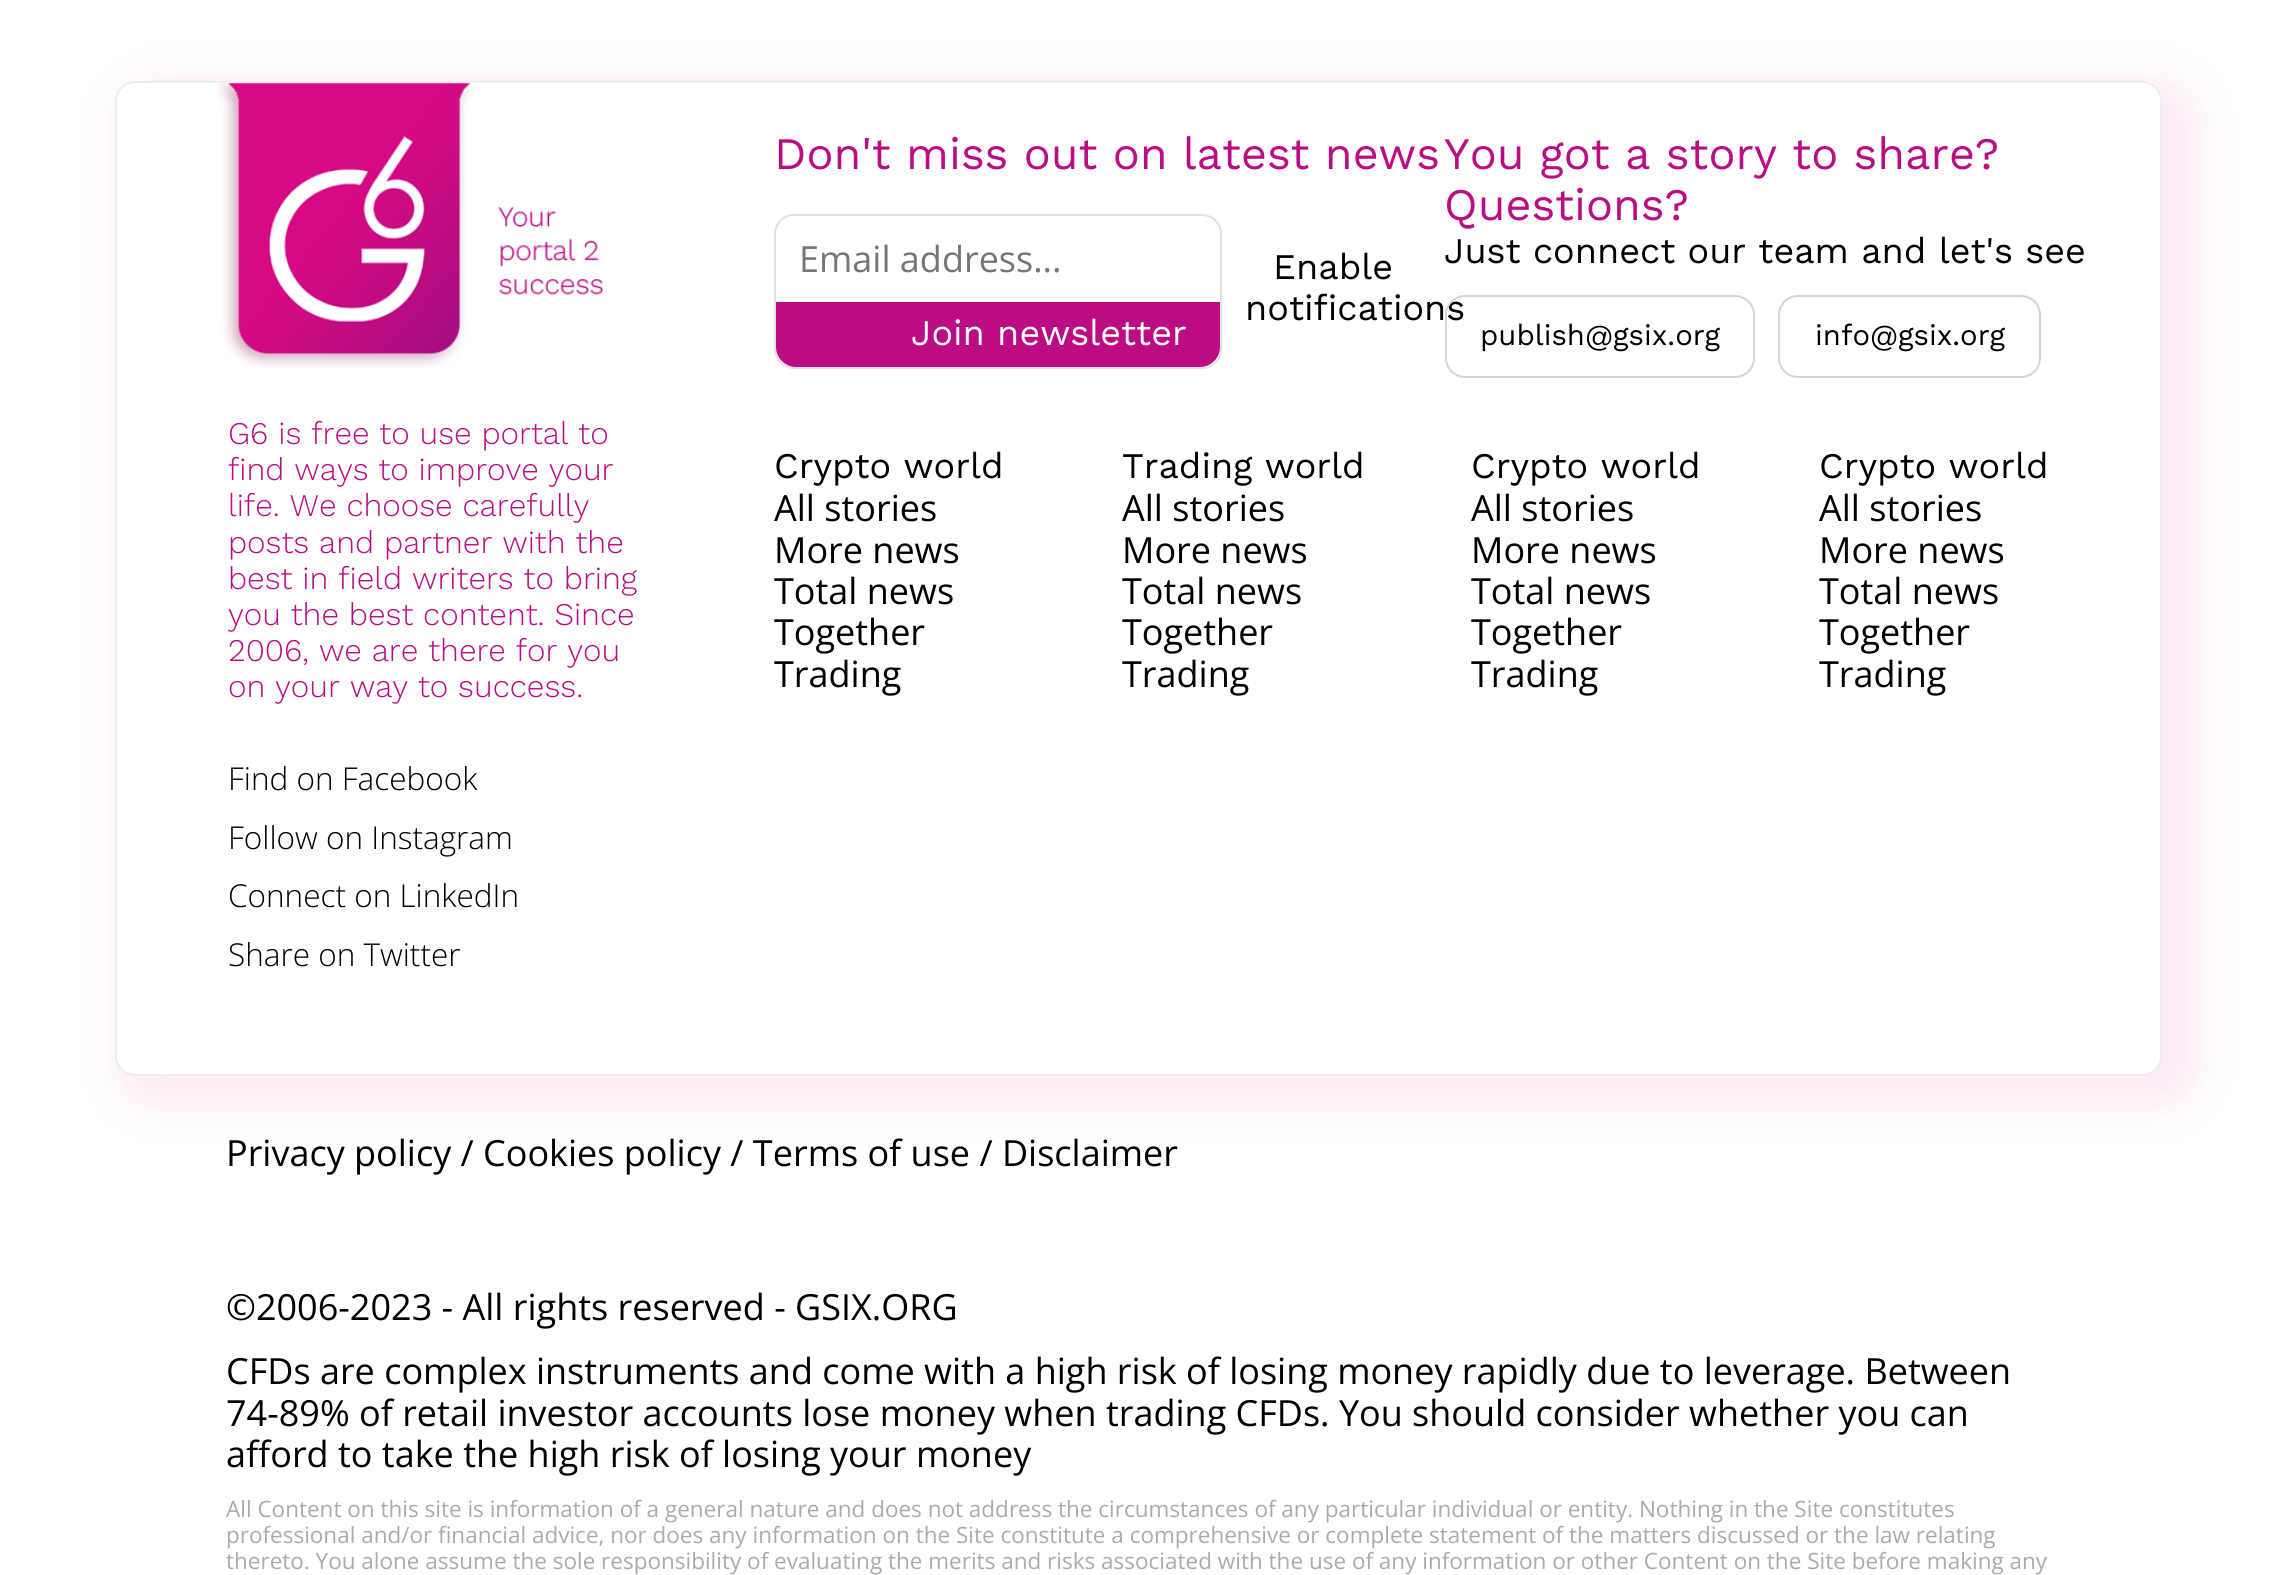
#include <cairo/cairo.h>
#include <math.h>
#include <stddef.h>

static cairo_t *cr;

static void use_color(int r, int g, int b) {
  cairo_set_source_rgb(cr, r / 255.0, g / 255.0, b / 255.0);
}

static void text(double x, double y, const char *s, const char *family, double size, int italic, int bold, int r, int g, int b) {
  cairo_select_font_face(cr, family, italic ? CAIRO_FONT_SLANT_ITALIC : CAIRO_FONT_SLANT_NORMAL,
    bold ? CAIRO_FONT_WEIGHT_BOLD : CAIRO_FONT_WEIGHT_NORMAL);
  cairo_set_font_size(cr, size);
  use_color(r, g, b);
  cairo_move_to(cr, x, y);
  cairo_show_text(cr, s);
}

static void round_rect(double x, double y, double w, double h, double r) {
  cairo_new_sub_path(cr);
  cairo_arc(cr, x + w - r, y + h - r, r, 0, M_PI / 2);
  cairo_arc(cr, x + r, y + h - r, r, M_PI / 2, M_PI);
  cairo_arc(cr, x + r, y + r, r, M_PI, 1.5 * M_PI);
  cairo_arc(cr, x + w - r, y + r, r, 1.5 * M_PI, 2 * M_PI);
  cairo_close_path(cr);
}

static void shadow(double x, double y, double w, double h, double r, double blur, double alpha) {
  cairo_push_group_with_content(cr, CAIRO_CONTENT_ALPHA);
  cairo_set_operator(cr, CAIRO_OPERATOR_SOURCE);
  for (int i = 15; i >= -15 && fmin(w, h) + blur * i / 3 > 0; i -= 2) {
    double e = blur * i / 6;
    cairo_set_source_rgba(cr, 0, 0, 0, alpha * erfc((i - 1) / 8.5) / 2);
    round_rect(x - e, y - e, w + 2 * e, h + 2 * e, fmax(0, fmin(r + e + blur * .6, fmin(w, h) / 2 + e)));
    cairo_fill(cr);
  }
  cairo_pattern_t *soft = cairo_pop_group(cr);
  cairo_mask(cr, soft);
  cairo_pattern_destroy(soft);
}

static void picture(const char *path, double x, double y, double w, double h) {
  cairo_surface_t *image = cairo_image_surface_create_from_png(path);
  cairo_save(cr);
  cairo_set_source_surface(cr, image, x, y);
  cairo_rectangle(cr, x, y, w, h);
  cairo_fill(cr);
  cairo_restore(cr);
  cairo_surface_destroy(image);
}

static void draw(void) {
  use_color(255, 255, 255);
  cairo_paint(cr);
  use_color(215, 10, 132);
  shadow(119, 81, 2079, 1026, 36, 22.5, 0.09);
  use_color(255, 255, 255);
  round_rect(116, 82, 2045, 993, 19);
  cairo_fill_preserve(cr);
  use_color(237, 237, 237);
  cairo_stroke(cr);
  picture("img_01.png", 217, 83, 386, 285);
  round_rect(775, 215, 446, 153, 19);
  use_color(225, 225, 225);
  cairo_stroke(cr);
  use_color(255, 255, 255);
  cairo_new_path(cr);
  cairo_move_to(cr, 796, 216);
  cairo_line_to(cr, 1200, 216);
  cairo_curve_to(cr, 1211, 216, 1220, 225, 1220, 236);
  cairo_line_to(cr, 1220, 302);
  cairo_line_to(cr, 776, 302);
  cairo_line_to(cr, 776, 236);
  cairo_curve_to(cr, 776, 225, 785, 216, 796, 216);
  cairo_close_path(cr);
  cairo_fill(cr);
  use_color(187, 12, 131);
  cairo_new_path(cr);
  cairo_move_to(cr, 776, 302);
  cairo_line_to(cr, 1220, 302);
  cairo_line_to(cr, 1220, 347);
  cairo_curve_to(cr, 1220, 358, 1211, 367, 1200, 367);
  cairo_line_to(cr, 796, 367);
  cairo_curve_to(cr, 785, 367, 776, 358, 776, 347);
  cairo_close_path(cr);
  cairo_fill(cr);
  round_rect(1779, 296, 261, 81, 19);
  use_color(213, 213, 213);
  cairo_stroke(cr);
  text(228, 444, "G6 is free to use portal to", "Work Sans Light", 31.5, 0, 0, 187, 12, 131);
  text(228, 480, "find ways to improve your", "Work Sans Light", 31.5, 0, 0, 187, 12, 131);
  text(228, 516, "life. We choose carefully", "Work Sans Light", 31.5, 0, 0, 187, 12, 131);
  text(228, 553, "posts and partner with the", "Work Sans Light", 31.5, 0, 0, 187, 12, 131);
  text(228, 589, "best in field writers to bring", "Work Sans Light", 31.5, 0, 0, 187, 12, 131);
  text(228, 625, "you the best content. Since", "Work Sans Light", 31.5, 0, 0, 187, 12, 131);
  text(228, 661, "2006, we are there for you", "Work Sans Light", 31.5, 0, 0, 187, 12, 131);
  text(228, 697, "on your way to success.", "Work Sans Light", 31.5, 0, 0, 187, 12, 131);
  text(228, 790, "Find on Facebook", "Open Sans Light", 31.5, 0, 0, 0, 0, 0);
  text(228, 849, "Follow on Instagram", "Open Sans Light", 31.5, 0, 0, 0, 0, 0);
  text(228, 907, "Connect on LinkedIn", "Open Sans Light", 31.5, 0, 0, 0, 0, 0);
  text(228, 966, "Share on Twitter", "Open Sans Light", 31.5, 0, 0, 0, 0, 0);
  text(774, 169, "Don't miss out on latest news", "Work Sans", 45, 0, 0, 187, 12, 131);
  text(799, 272, "Email address...", "Open Sans", 36, 0, 0, 117, 117, 117);
  text(911, 345, "Join newsletter", "Work Sans", 36, 0, 0, 255, 255, 255);
  text(1273, 279, "Enable", "Work Sans", 36, 0, 0, 0, 0, 0);
  text(1245, 320, "notifications", "Work Sans", 36, 0, 0, 0, 0, 0);
  text(1444, 169, "You got a story to share?", "Work Sans", 45, 0, 0, 187, 12, 131);
  text(1444, 220, "Questions?", "Work Sans", 45, 0, 0, 187, 12, 131);
  text(1444, 263, "Just connect our team and let's see", "Work Sans", 36, 0, 0, 0, 0, 0);
  round_rect(1446, 296, 308, 81, 19);
  use_color(213, 213, 213);
  cairo_stroke(cr);
  text(1480, 345, "publish@gsix.org", "Work Sans", 29.25, 0, 0, 0, 0, 0);
  text(1815, 345, "info@gsix.org", "Work Sans", 29.25, 0, 0, 0, 0, 0);
  text(774, 478, "Crypto world", "Work Sans", 36, 0, 0, 0, 0, 0);
  text(774, 521, "All stories", "Open Sans", 36, 0, 0, 0, 0, 0);
  text(774, 563, "More news", "Open Sans", 36, 0, 0, 0, 0, 0);
  text(774, 604, "Total news", "Open Sans", 36, 0, 0, 0, 0, 0);
  text(774, 645, "Together", "Open Sans", 36, 0, 0, 0, 0, 0);
  text(774, 687, "Trading", "Open Sans", 36, 0, 0, 0, 0, 0);
  text(1122, 478, "Trading world", "Work Sans", 36, 0, 0, 0, 0, 0);
  text(1122, 521, "All stories", "Open Sans", 36, 0, 0, 0, 0, 0);
  text(1122, 563, "More news", "Open Sans", 36, 0, 0, 0, 0, 0);
  text(1122, 604, "Total news", "Open Sans", 36, 0, 0, 0, 0, 0);
  text(1122, 645, "Together", "Open Sans", 36, 0, 0, 0, 0, 0);
  text(1122, 687, "Trading", "Open Sans", 36, 0, 0, 0, 0, 0);
  text(1471, 478, "Crypto world", "Work Sans", 36, 0, 0, 0, 0, 0);
  text(1471, 521, "All stories", "Open Sans", 36, 0, 0, 0, 0, 0);
  text(1471, 563, "More news", "Open Sans", 36, 0, 0, 0, 0, 0);
  text(1471, 604, "Total news", "Open Sans", 36, 0, 0, 0, 0, 0);
  text(1471, 645, "Together", "Open Sans", 36, 0, 0, 0, 0, 0);
  text(1471, 687, "Trading", "Open Sans", 36, 0, 0, 0, 0, 0);
  text(1819, 478, "Crypto world", "Work Sans", 36, 0, 0, 0, 0, 0);
  text(1819, 521, "All stories", "Open Sans", 36, 0, 0, 0, 0, 0);
  text(1819, 563, "More news", "Open Sans", 36, 0, 0, 0, 0, 0);
  text(1819, 604, "Total news", "Open Sans", 36, 0, 0, 0, 0, 0);
  text(1819, 645, "Together", "Open Sans", 36, 0, 0, 0, 0, 0);
  text(1819, 687, "Trading", "Open Sans", 36, 0, 0, 0, 0, 0);
  text(226, 1166, "Privacy policy / Cookies policy / Terms of use / Disclaimer", "Open Sans", 36, 0, 0, 0, 0, 0);
  text(226, 1320, "©2006-2023 - All rights reserved - GSIX.ORG", "Open Sans", 36, 0, 0, 0, 0, 0);
  text(226, 1384, "CFDs are complex instruments and come with a high risk of losing money rapidly due to leverage. Between", "Open Sans", 36, 0, 0, 0, 0, 0);
  text(226, 1426, "74-89% of retail investor accounts lose money when trading CFDs. You should consider whether you can", "Open Sans", 36, 0, 0, 0, 0, 0);
  text(226, 1467, "afford to take the high risk of losing your money", "Open Sans", 36, 0, 0, 0, 0, 0);
  text(226, 1517, "All Content on this site is information of a general nature and does not address the circumstances of any particular individual or entity. Nothing in the Site constitutes", "Open Sans", 22.5, 0, 0, 171, 171, 171);
  text(226, 1543, "professional and/or financial advice, nor does any information on the Site constitute a comprehensive or complete statement of the matters discussed or the law relating", "Open Sans", 22.5, 0, 0, 171, 171, 171);
  text(226, 1569, "thereto. You alone assume the sole responsibility of evaluating the merits and risks associated with the use of any information or other Content on the Site before making any", "Open Sans", 22.5, 0, 0, 171, 171, 171);
}

int main(void) {
  cairo_surface_t *surface = cairo_image_surface_create(CAIRO_FORMAT_RGB24, 2274, 1575);
  cr = cairo_create(surface);
  cairo_font_options_t *options = cairo_font_options_create();
  cairo_font_options_set_hint_metrics(options, CAIRO_HINT_METRICS_OFF);
  cairo_font_options_set_hint_style(options, CAIRO_HINT_STYLE_NONE);
  cairo_set_font_options(cr, options);
  cairo_set_miter_limit(cr, 4);
  draw();
  cairo_surface_write_to_png(surface, "out.png");
  cairo_font_options_destroy(options);
  cairo_destroy(cr);
  cairo_surface_destroy(surface);
  return 0;
}
